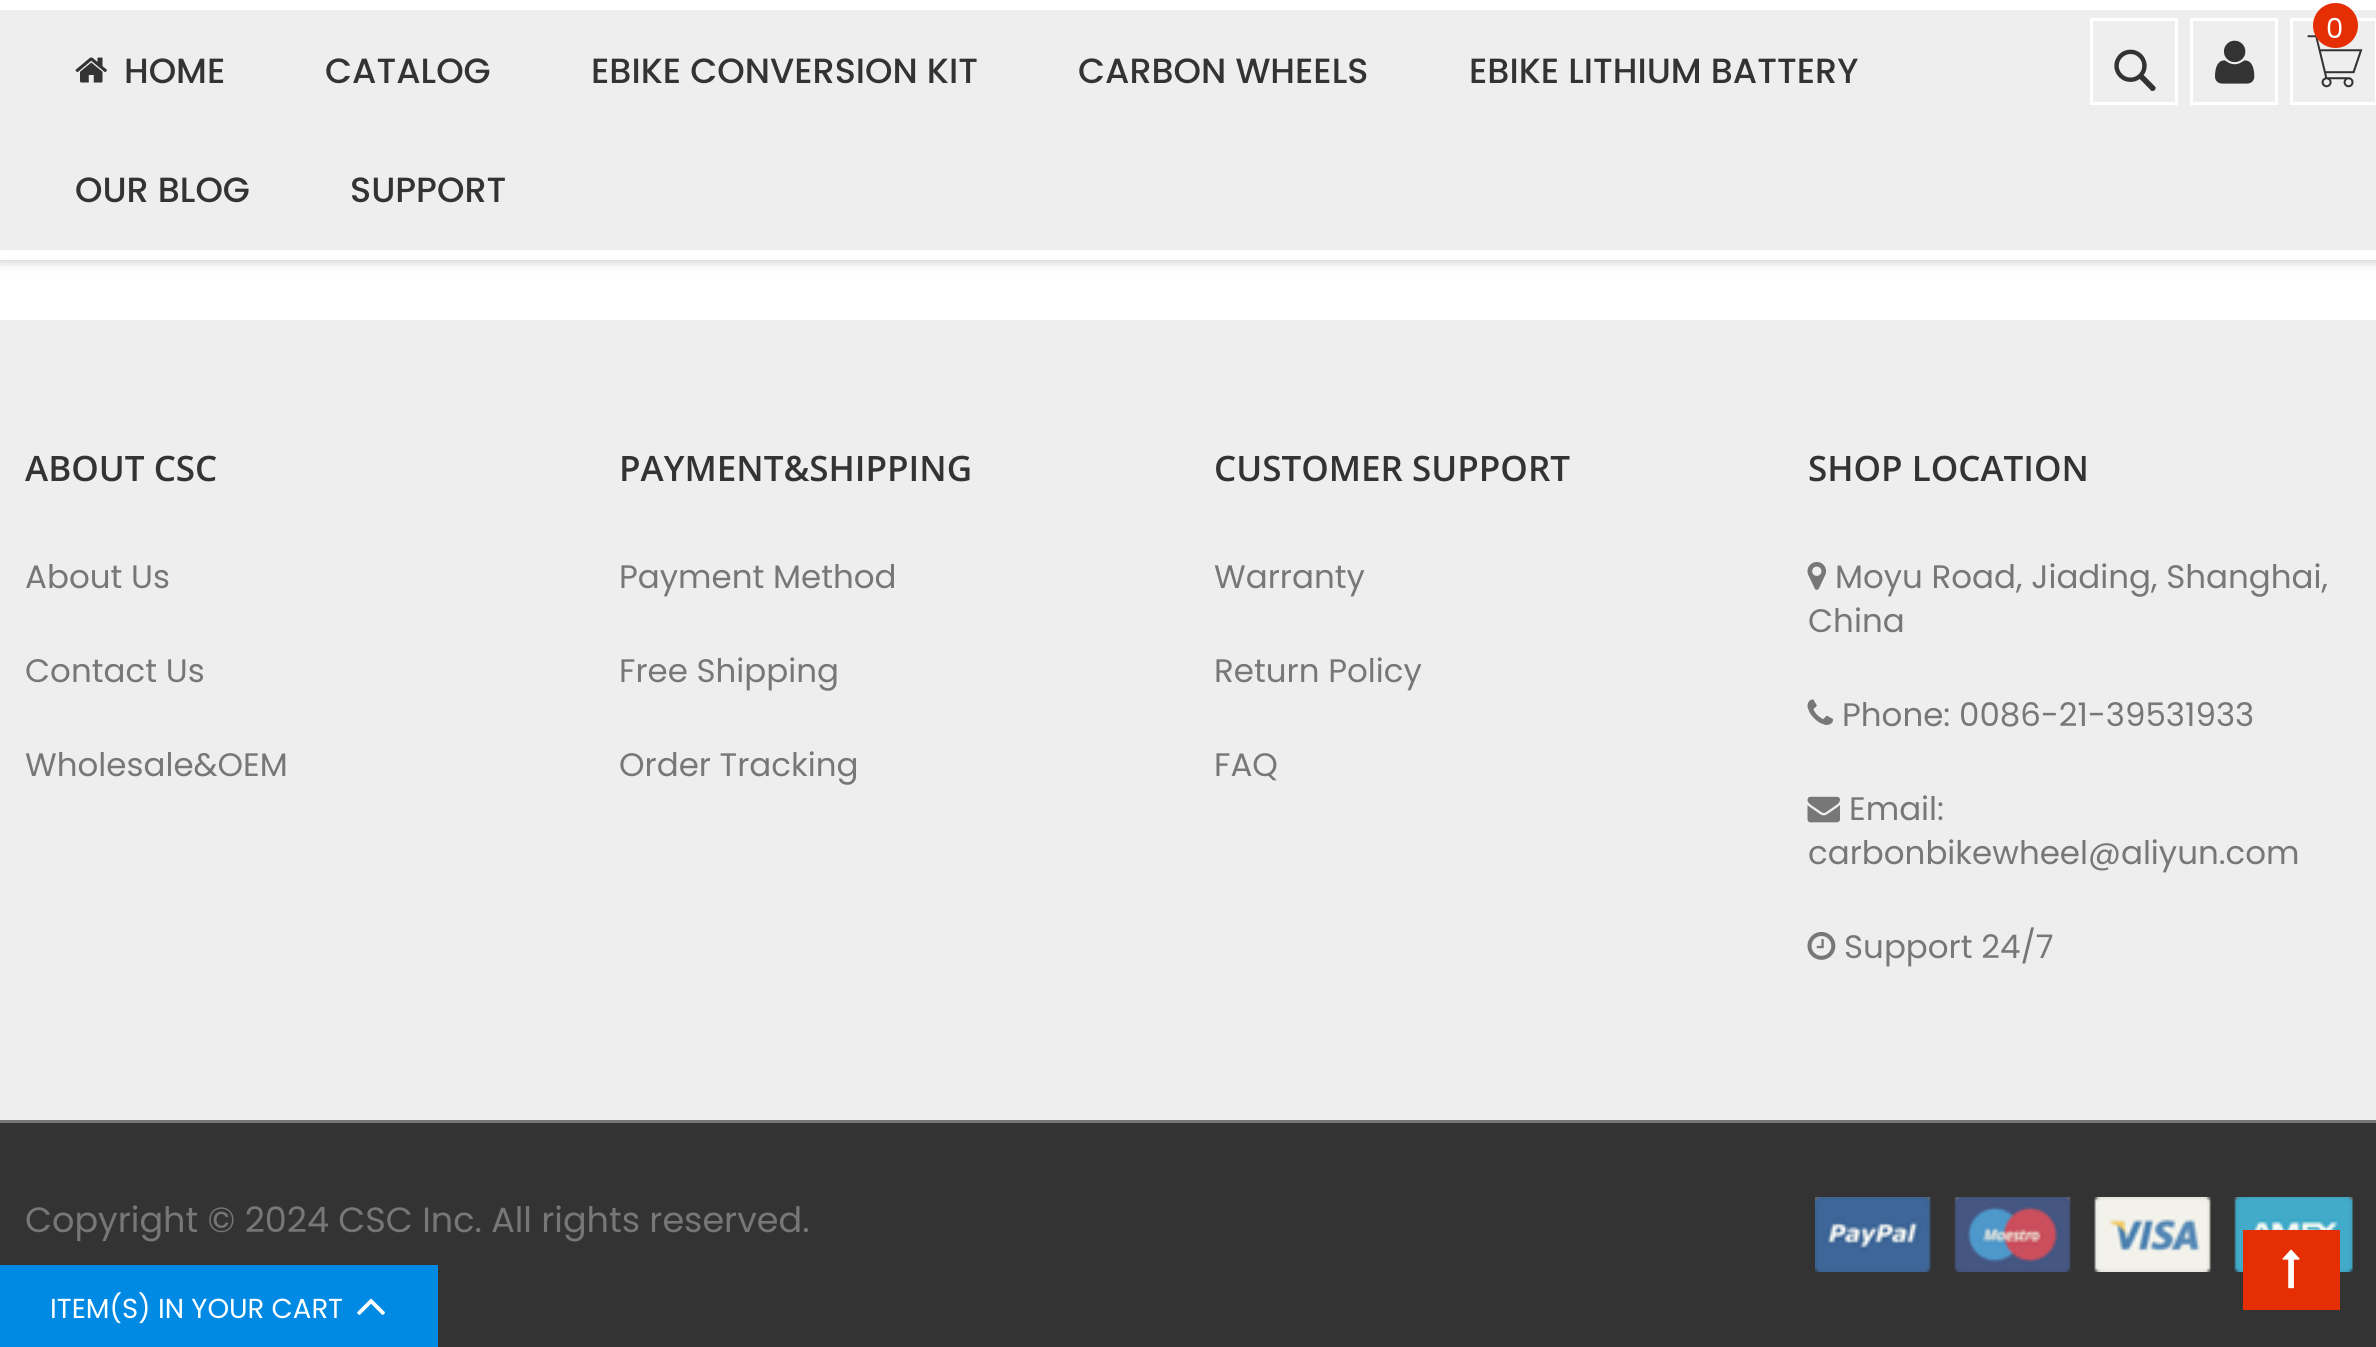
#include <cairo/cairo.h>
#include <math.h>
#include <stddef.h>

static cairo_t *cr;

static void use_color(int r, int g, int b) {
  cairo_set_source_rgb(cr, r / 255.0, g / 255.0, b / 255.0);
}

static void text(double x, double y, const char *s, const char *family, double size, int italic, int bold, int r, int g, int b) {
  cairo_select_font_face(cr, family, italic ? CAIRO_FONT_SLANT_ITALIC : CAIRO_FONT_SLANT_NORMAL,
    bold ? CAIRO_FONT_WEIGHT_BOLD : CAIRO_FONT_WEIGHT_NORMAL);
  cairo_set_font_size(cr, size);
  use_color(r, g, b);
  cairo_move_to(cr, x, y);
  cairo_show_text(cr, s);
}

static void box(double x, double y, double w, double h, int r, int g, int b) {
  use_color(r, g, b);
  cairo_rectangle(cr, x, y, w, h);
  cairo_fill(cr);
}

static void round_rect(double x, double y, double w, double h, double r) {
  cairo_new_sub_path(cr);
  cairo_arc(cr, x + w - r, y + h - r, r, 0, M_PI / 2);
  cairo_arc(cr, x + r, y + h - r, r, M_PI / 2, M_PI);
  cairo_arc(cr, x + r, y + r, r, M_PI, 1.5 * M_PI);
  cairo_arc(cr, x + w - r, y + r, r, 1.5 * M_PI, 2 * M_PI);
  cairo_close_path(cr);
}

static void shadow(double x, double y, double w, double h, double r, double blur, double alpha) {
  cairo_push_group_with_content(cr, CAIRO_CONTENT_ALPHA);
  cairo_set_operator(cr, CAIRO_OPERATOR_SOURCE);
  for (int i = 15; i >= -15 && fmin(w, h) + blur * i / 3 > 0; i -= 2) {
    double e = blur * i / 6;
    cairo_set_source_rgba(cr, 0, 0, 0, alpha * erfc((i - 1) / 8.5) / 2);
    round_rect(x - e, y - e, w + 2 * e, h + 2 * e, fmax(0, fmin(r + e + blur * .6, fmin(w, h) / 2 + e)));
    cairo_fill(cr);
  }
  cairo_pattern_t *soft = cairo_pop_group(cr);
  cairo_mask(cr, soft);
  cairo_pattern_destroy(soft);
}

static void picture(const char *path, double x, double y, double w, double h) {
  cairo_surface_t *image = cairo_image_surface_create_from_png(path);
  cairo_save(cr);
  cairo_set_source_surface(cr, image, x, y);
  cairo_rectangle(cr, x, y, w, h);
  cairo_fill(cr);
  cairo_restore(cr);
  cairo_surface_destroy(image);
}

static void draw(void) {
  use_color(238, 238, 238);
  cairo_paint(cr);
  box(0, 260, 2376, 60, 255, 255, 255);
  use_color(189, 189, 189);
  shadow(0, 0, 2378, 260, 0, 6, 1);
  box(0, 0, 2376, 260, 255, 255, 255);
  box(0, 10, 2376, 240, 238, 238, 238);
  cairo_rectangle(cr, 2091.5, 19.5, 85, 84);
  use_color(255, 255, 255);
  cairo_set_line_width(cr, 3);
  cairo_stroke(cr);
  picture("img_01.png", 2114, 49, 42, 42);
  cairo_rectangle(cr, 2191.5, 19.5, 85, 84);
  cairo_stroke(cr);
  picture("img_02.png", 2215, 40, 40, 44);
  cairo_rectangle(cr, 2291.5, 19.5, 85, 84);
  cairo_stroke(cr);
  picture("img_03.png", 2307, 35, 56, 53);
  use_color(230, 46, 4);
  cairo_arc(cr, 2335.5, 25.5, 22.5, 0, 2 * M_PI);
  cairo_fill(cr);
  picture("img_04.png", 75, 57, 32, 26);
  picture("img_05.png", 1807, 562, 20, 28);
  picture("img_06.png", 1807, 699, 26, 26);
  picture("img_07.png", 1807, 796, 33, 27);
  picture("img_08.png", 1807, 932, 29, 28);
  box(0, 1123, 2376, 224, 51, 51, 51);
  box(0, 1120, 2376, 3, 119, 119, 119);
  picture("img_09.png", 1815, 1197, 538, 75);
  box(0, 1265, 438, 82, 0, 138, 227);
  picture("img_10.png", 357, 1298, 28, 17);
  box(2243, 1230, 97, 80, 230, 46, 4);
  picture("img_11.png", 2282, 1249, 18, 40);
  text(2326, 38, "0", "Poppins", 27.5, 0, 0, 255, 255, 255);
  text(124, 83, "HOME", "Poppins Medium", 35, 0, 0, 51, 51, 51);
  text(325, 83, "CATALOG", "Poppins Medium", 35, 0, 0, 51, 51, 51);
  text(591, 83, "EBIKE CONVERSION KIT", "Poppins Medium", 35, 0, 0, 51, 51, 51);
  text(1078, 83, "CARBON WHEELS", "Poppins Medium", 35, 0, 0, 51, 51, 51);
  text(1469, 83, "EBIKE LITHIUM BATTERY", "Poppins Medium", 35, 0, 0, 51, 51, 51);
  text(75, 202, "OUR BLOG", "Poppins Medium", 35, 0, 0, 51, 51, 51);
  text(350, 202, "SUPPORT", "Poppins Medium", 35, 0, 0, 51, 51, 51);
  text(25, 481, "ABOUT CSC", "Open Sans SemiBold", 35, 0, 0, 51, 51, 51);
  text(25, 588, "About Us", "Poppins", 32.5, 0, 0, 119, 119, 119);
  text(25, 682, "Contact Us", "Poppins", 32.5, 0, 0, 119, 119, 119);
  text(25, 776, "Wholesale&OEM", "Poppins", 32.5, 0, 0, 119, 119, 119);
  text(619, 481, "PAYMENT&SHIPPING", "Open Sans SemiBold", 35, 0, 0, 51, 51, 51);
  text(619, 588, "Payment Method", "Poppins", 32.5, 0, 0, 119, 119, 119);
  text(619, 682, "Free Shipping", "Poppins", 32.5, 0, 0, 119, 119, 119);
  text(619, 776, "Order Tracking", "Poppins", 32.5, 0, 0, 119, 119, 119);
  text(1214, 481, "CUSTOMER SUPPORT", "Open Sans SemiBold", 35, 0, 0, 51, 51, 51);
  text(1214, 588, "Warranty", "Poppins", 32.5, 0, 0, 119, 119, 119);
  text(1214, 682, "Return Policy", "Poppins", 32.5, 0, 0, 119, 119, 119);
  text(1214, 776, "FAQ", "Poppins", 32.5, 0, 0, 119, 119, 119);
  text(1808, 481, "SHOP LOCATION", "Open Sans SemiBold", 35, 0, 0, 51, 51, 51);
  text(1835, 588, "Moyu Road, Jiading, Shanghai,", "Poppins", 32.5, 0, 0, 119, 119, 119);
  text(1808, 632, "China", "Poppins", 32.5, 0, 0, 119, 119, 119);
  text(1842, 726, "Phone: 0086-21-39531933", "Poppins", 32.5, 0, 0, 119, 119, 119);
  text(1849, 820, "Email:", "Poppins", 32.5, 0, 0, 119, 119, 119);
  text(1808, 864, "carbonbikewheel@aliyun.com", "Poppins", 32.5, 0, 0, 119, 119, 119);
  text(1844, 958, "Support 24/7", "Poppins", 32.5, 0, 0, 119, 119, 119);
  text(25, 1232, "Copyright © 2024 CSC Inc. All rights reserved.", "Poppins", 35, 0, 0, 119, 119, 119);
  text(50, 1318, "ITEM(S) IN YOUR CART", "Poppins", 27.5, 0, 0, 255, 255, 255);
}

int main(void) {
  cairo_surface_t *surface = cairo_image_surface_create(CAIRO_FORMAT_RGB24, 2376, 1347);
  cr = cairo_create(surface);
  cairo_font_options_t *options = cairo_font_options_create();
  cairo_font_options_set_hint_metrics(options, CAIRO_HINT_METRICS_OFF);
  cairo_font_options_set_hint_style(options, CAIRO_HINT_STYLE_NONE);
  cairo_set_font_options(cr, options);
  cairo_set_miter_limit(cr, 4);
  draw();
  cairo_surface_write_to_png(surface, "out.png");
  cairo_font_options_destroy(options);
  cairo_destroy(cr);
  cairo_surface_destroy(surface);
  return 0;
}
